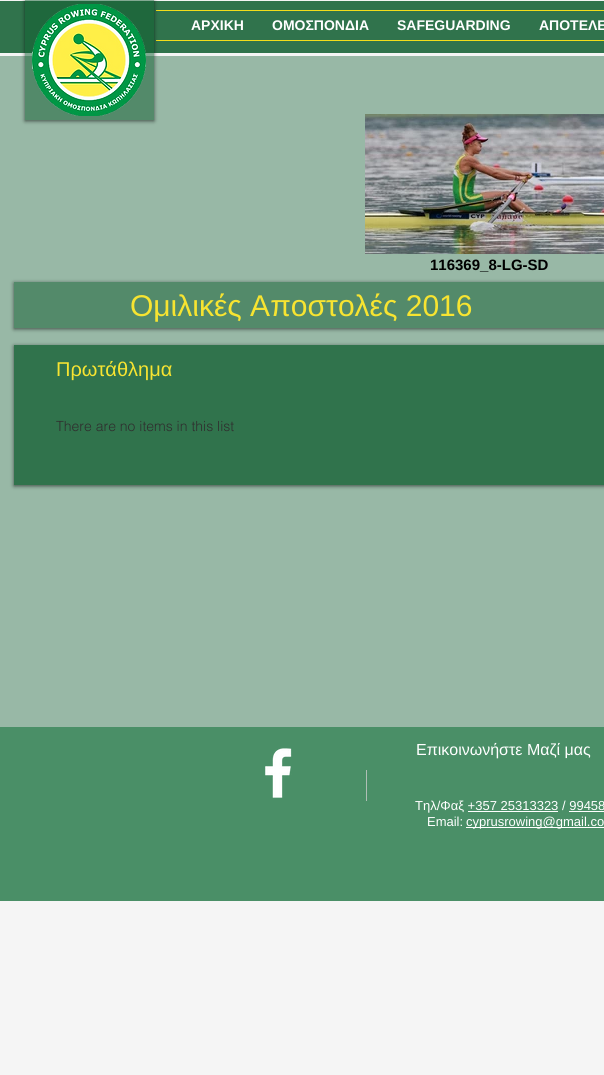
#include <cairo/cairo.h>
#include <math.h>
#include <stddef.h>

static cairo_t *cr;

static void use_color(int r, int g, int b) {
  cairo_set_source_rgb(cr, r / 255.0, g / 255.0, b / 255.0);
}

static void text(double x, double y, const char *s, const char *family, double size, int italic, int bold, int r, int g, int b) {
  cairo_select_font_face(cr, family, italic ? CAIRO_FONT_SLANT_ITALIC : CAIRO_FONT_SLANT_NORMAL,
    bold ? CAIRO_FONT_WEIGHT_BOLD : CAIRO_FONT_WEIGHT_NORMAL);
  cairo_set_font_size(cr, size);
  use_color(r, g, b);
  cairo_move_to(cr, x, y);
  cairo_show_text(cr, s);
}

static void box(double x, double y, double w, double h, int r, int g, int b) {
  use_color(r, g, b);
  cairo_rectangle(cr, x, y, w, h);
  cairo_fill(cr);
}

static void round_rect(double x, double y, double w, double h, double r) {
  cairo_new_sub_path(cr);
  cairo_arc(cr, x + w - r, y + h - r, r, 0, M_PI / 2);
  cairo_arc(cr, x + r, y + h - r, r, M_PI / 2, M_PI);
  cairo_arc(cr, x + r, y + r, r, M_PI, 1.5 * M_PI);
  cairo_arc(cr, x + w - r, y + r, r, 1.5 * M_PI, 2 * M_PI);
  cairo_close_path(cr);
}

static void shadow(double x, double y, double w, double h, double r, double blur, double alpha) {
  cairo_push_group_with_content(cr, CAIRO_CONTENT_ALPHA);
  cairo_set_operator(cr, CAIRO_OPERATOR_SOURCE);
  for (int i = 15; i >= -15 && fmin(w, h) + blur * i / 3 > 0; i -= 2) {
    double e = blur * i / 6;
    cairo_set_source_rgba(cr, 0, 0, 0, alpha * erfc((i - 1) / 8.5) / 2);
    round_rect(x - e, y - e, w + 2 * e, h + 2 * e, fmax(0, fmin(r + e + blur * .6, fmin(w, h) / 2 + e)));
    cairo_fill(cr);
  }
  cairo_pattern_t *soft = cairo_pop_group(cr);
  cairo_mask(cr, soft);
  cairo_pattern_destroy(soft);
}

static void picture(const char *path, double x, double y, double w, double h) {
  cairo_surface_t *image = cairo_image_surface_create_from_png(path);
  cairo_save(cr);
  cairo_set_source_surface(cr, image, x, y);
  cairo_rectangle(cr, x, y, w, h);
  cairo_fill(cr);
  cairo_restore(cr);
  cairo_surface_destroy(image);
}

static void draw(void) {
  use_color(245, 245, 245);
  cairo_paint(cr);
  box(25, 0, 129, 56, 129, 169, 146);
  box(0, 1, 604, 52, 48, 115, 76);
  box(25, 1, 129, 52, 31, 104, 61);
  box(156, 10, 448, 1, 242, 221, 27);
  box(156, 40, 448, 1, 242, 221, 27);
  box(0, 56, 604, 671, 152, 184, 166);
  box(25, 56, 129, 64, 83, 138, 106);
  cairo_save(cr);
  cairo_set_fill_rule(cr, CAIRO_FILL_RULE_EVEN_ODD);
  cairo_new_path(cr);
  cairo_move_to(cr, 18, 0);
  cairo_line_to(cr, 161, 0);
  cairo_line_to(cr, 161, 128);
  cairo_line_to(cr, 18, 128);
  cairo_close_path(cr);
  cairo_move_to(cr, 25, 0);
  cairo_line_to(cr, 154, 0);
  cairo_line_to(cr, 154, 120);
  cairo_line_to(cr, 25, 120);
  cairo_close_path(cr);
  cairo_clip(cr);
  use_color(0, 0, 0);
  shadow(25, 1, 129, 120, 0, 2, 0.6);
  cairo_restore(cr);
  picture("img_01.png", 32, 4, 114, 112);
  picture("img_02.png", 365, 114, 239, 140);
  use_color(0, 0, 0);
  shadow(14, 283, 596, 46, 0, 2, 0.6);
  box(14, 282, 590, 46, 83, 138, 106);
  use_color(0, 0, 0);
  shadow(14, 346, 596, 140, 0, 2, 0.6);
  box(14, 345, 590, 140, 48, 115, 76);
  box(0, 727, 604, 174, 74, 143, 103);
  picture("img_03.png", 265, 748, 27, 50);
  box(366, 770, 1, 31, 175, 191, 182);
  box(468, 811, 90, 1, 255, 255, 255);
  box(569, 811, 35, 1, 255, 255, 255);
  box(466, 827, 138, 1, 255, 255, 255);
  text(191, 30, "ΑΡΧΙΚΗ", "Liberation Sans", 14, 0, 1, 255, 255, 255);
  text(272, 30, "ΟΜΟΣΠΟΝΔΙΑ", "Liberation Sans", 14, 0, 1, 255, 255, 255);
  text(397, 30, "SAFEGUARDING", "Liberation Sans", 14, 0, 1, 255, 255, 255);
  text(539, 30, "ΑΠΟΤΕΛΕ", "Liberation Sans", 14, 0, 1, 255, 255, 255);
  text(430, 270, "116369_8-LG-SD", "Liberation Sans", 15, 0, 1, 0, 0, 0);
  text(130, 316, "Ομιλικές Αποστολές 2016", "Liberation Sans", 30, 0, 0, 247, 228, 49);
  text(56, 376, "Πρωτάθλημα", "Liberation Sans", 20, 0, 0, 247, 228, 49);
  text(56, 431, "There are no items in this list", "helvetica Light", 14, 0, 0, 47, 46, 46);
  text(416, 755, "Επικοινωνήστε Μαζί μας", "Liberation Sans", 16, 0, 0, 255, 255, 255);
  text(415, 810, "Τηλ/Φαξ +357 25313323 / 99458", "Liberation Sans", 13, 0, 0, 255, 255, 255);
  text(427, 826, "Email:", "Liberation Sans", 13, 0, 0, 255, 255, 255);
  text(466, 826, "cyprusrowing@gmail.co", "Liberation Sans", 13, 0, 0, 255, 255, 255);
}

int main(void) {
  cairo_surface_t *surface = cairo_image_surface_create(CAIRO_FORMAT_RGB24, 604, 1075);
  cr = cairo_create(surface);
  cairo_font_options_t *options = cairo_font_options_create();
  cairo_font_options_set_hint_metrics(options, CAIRO_HINT_METRICS_OFF);
  cairo_font_options_set_hint_style(options, CAIRO_HINT_STYLE_NONE);
  cairo_set_font_options(cr, options);
  cairo_set_miter_limit(cr, 4);
  draw();
  cairo_surface_write_to_png(surface, "out.png");
  cairo_font_options_destroy(options);
  cairo_destroy(cr);
  cairo_surface_destroy(surface);
  return 0;
}
